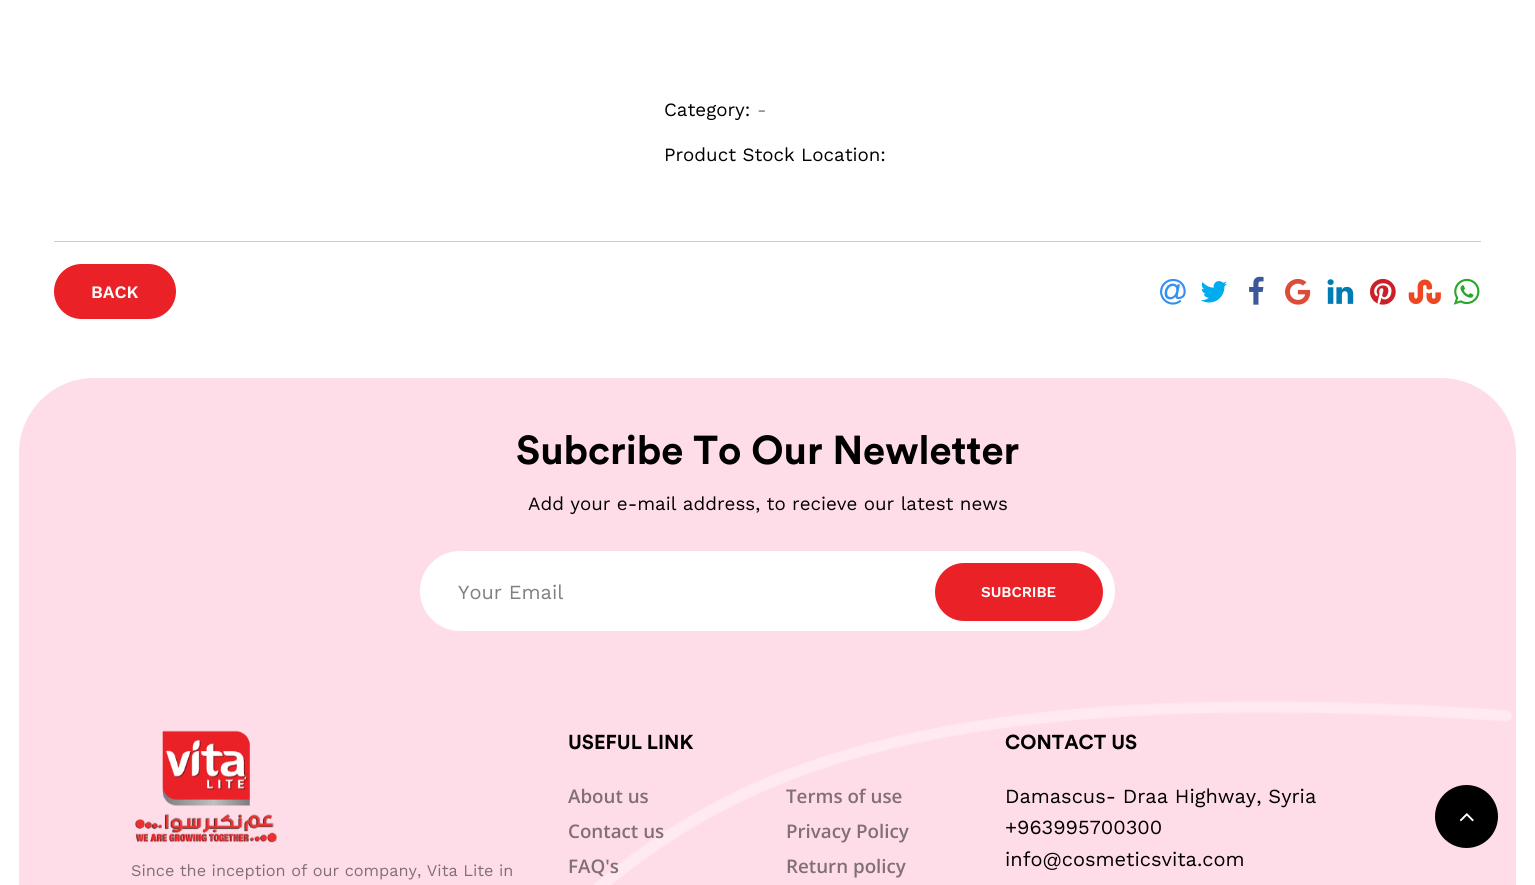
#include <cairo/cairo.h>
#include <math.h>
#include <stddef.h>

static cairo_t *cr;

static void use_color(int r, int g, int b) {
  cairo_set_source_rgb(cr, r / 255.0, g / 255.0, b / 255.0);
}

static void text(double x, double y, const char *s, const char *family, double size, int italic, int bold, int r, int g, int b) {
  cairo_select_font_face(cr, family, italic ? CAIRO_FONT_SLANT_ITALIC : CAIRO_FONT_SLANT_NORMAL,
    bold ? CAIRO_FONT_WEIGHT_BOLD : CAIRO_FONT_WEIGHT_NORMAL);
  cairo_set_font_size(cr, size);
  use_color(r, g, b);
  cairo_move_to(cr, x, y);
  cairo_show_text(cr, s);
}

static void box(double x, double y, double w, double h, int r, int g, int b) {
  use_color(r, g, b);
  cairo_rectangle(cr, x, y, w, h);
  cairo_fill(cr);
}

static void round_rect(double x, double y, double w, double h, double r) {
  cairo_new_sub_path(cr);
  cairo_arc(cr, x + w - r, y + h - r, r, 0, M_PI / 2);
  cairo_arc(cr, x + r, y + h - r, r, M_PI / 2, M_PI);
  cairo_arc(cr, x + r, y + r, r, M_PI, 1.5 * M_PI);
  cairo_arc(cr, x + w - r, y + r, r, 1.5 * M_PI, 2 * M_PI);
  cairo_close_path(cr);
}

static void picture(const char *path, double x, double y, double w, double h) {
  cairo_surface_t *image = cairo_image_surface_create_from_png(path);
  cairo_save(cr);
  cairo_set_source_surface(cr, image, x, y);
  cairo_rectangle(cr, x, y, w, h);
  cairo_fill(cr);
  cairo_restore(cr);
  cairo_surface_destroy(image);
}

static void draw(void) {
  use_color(255, 255, 255);
  cairo_paint(cr);
  box(54, 241, 1427, 1, 204, 204, 204);
  use_color(234, 33, 39);
  round_rect(54, 264, 122, 55, 27.5);
  cairo_fill(cr);
  picture("img_01.png", 1160, 278, 26, 27);
  picture("img_02.png", 1201, 281, 26, 22);
  picture("img_03.png", 1249, 276, 15, 29);
  picture("img_04.png", 1285, 278, 26, 27);
  picture("img_05.png", 1327, 279, 27, 25);
  picture("img_06.png", 1370, 278, 26, 27);
  picture("img_07.png", 1408, 279, 33, 26);
  picture("img_08.png", 1453, 278, 27, 27);
  use_color(255, 221, 232);
  cairo_new_path(cr);
  cairo_move_to(cr, 94, 378);
  cairo_line_to(cr, 1441, 378);
  cairo_curve_to(cr, 1482.5, 378, 1516, 411.5, 1516, 453);
  cairo_line_to(cr, 1516, 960);
  cairo_line_to(cr, 19, 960);
  cairo_line_to(cr, 19, 453);
  cairo_curve_to(cr, 19, 411.5, 52.5, 378, 94, 378);
  cairo_close_path(cr);
  cairo_fill(cr);
  use_color(255, 255, 255);
  round_rect(420, 551, 695, 80, 40);
  cairo_fill(cr);
  use_color(234, 33, 39);
  round_rect(935, 563, 168, 58, 29);
  cairo_fill(cr);
  picture("img_09.png", 593, 701, 919, 184);
  picture("img_10.png", 135, 730, 142, 113);
  use_color(0, 0, 0);
  cairo_arc(cr, 1466.5, 816.5, 31.5, 0, 2 * M_PI);
  cairo_fill(cr);
  picture("img_11.png", 1459, 813, 15, 9);
  text(664, 116, "Category:", "Work Sans", 18.75, 0, 0, 0, 0, 0);
  text(757, 116, "-", "Work Sans", 18.75, 0, 0, 136, 136, 136);
  text(664, 161, "Product Stock Location:", "Work Sans", 18.75, 0, 0, 0, 0, 0);
  text(91, 298, "BACK", "Work Sans SemiBold", 17.5, 0, 0, 255, 255, 255);
  text(516, 464, "Subcribe To Our Newletter", "Circular", 40, 0, 1, 0, 0, 0);
  text(528, 510, "Add your e-mail address, to recieve our latest news", "Work Sans", 18.75, 0, 0, 0, 0, 0);
  text(458, 599, "Your Email", "Work Sans", 20, 0, 0, 128, 128, 128);
  text(981, 597, "SUBCRIBE", "Work Sans SemiBold", 15, 0, 0, 255, 255, 255);
  text(131, 876, "Since the inception of our company, Vita Lite in", "Work Sans", 16.25, 0, 0, 128, 111, 116);
  text(568, 749, "USEFUL LINK", "Circular", 20, 0, 1, 0, 0, 0);
  text(568, 803, "About us", "Open Sans SemiBold", 18.75, 0, 0, 128, 111, 116);
  text(568, 838, "Contact us", "Open Sans SemiBold", 18.75, 0, 0, 128, 111, 116);
  text(568, 873, "FAQ's", "Open Sans SemiBold", 18.75, 0, 0, 128, 111, 116);
  text(786, 803, "Terms of use", "Open Sans SemiBold", 18.75, 0, 0, 128, 111, 116);
  text(786, 838, "Privacy Policy", "Open Sans SemiBold", 18.75, 0, 0, 128, 111, 116);
  text(786, 873, "Return policy", "Open Sans SemiBold", 18.75, 0, 0, 128, 111, 116);
  text(1005, 749, "CONTACT US", "Circular", 20, 0, 1, 0, 0, 0);
  text(1005, 803, "Damascus- Draa Highway, Syria", "Work Sans", 20, 0, 0, 0, 0, 0);
  text(1005, 834, "+963995700300", "Work Sans", 20, 0, 0, 0, 0, 0);
  text(1005, 866, "info@cosmeticsvita.com", "Work Sans", 20, 0, 0, 0, 0, 0);
}

int main(void) {
  cairo_surface_t *surface = cairo_image_surface_create(CAIRO_FORMAT_RGB24, 1535, 885);
  cr = cairo_create(surface);
  cairo_font_options_t *options = cairo_font_options_create();
  cairo_font_options_set_hint_metrics(options, CAIRO_HINT_METRICS_OFF);
  cairo_font_options_set_hint_style(options, CAIRO_HINT_STYLE_NONE);
  cairo_set_font_options(cr, options);
  cairo_set_miter_limit(cr, 4);
  draw();
  cairo_surface_write_to_png(surface, "out.png");
  cairo_font_options_destroy(options);
  cairo_destroy(cr);
  cairo_surface_destroy(surface);
  return 0;
}
